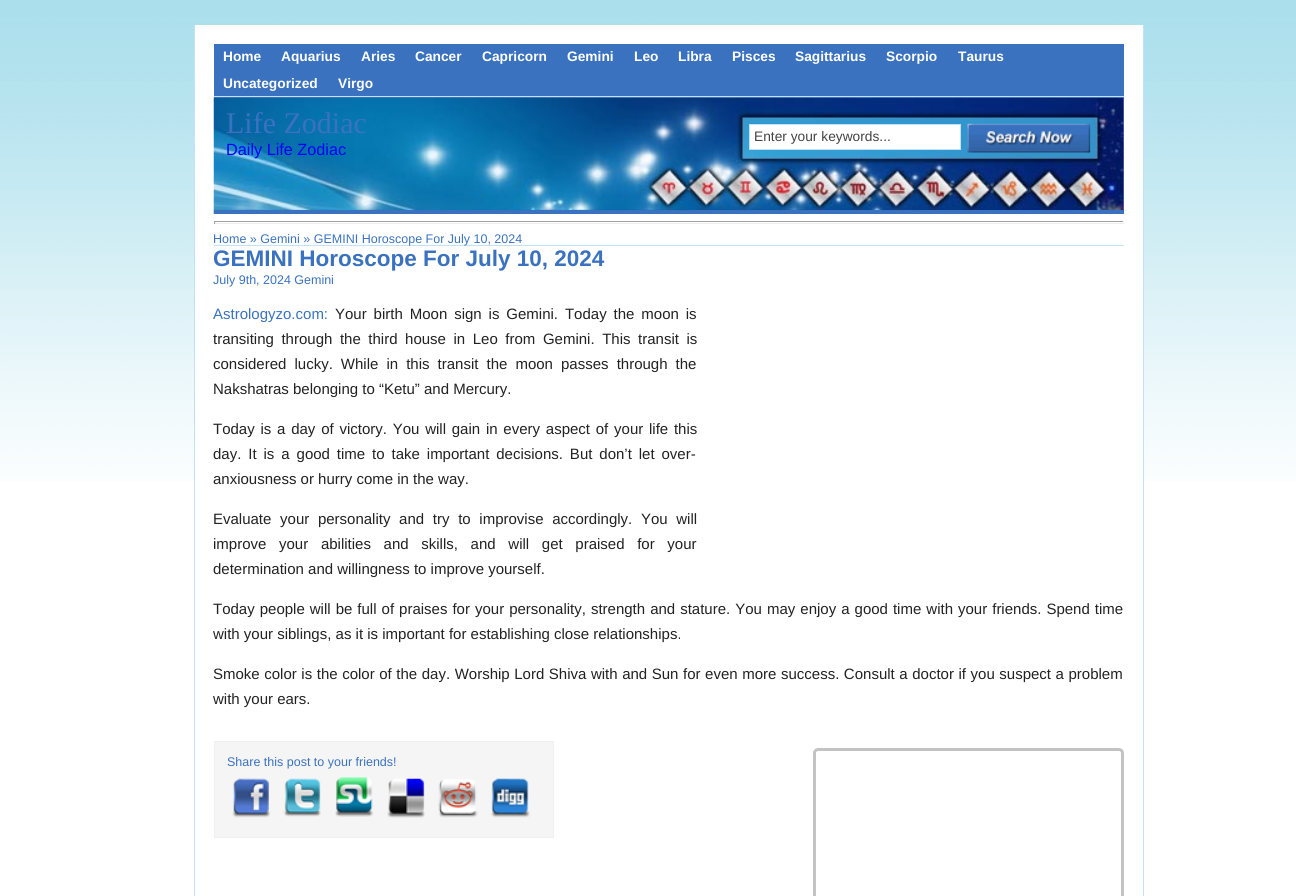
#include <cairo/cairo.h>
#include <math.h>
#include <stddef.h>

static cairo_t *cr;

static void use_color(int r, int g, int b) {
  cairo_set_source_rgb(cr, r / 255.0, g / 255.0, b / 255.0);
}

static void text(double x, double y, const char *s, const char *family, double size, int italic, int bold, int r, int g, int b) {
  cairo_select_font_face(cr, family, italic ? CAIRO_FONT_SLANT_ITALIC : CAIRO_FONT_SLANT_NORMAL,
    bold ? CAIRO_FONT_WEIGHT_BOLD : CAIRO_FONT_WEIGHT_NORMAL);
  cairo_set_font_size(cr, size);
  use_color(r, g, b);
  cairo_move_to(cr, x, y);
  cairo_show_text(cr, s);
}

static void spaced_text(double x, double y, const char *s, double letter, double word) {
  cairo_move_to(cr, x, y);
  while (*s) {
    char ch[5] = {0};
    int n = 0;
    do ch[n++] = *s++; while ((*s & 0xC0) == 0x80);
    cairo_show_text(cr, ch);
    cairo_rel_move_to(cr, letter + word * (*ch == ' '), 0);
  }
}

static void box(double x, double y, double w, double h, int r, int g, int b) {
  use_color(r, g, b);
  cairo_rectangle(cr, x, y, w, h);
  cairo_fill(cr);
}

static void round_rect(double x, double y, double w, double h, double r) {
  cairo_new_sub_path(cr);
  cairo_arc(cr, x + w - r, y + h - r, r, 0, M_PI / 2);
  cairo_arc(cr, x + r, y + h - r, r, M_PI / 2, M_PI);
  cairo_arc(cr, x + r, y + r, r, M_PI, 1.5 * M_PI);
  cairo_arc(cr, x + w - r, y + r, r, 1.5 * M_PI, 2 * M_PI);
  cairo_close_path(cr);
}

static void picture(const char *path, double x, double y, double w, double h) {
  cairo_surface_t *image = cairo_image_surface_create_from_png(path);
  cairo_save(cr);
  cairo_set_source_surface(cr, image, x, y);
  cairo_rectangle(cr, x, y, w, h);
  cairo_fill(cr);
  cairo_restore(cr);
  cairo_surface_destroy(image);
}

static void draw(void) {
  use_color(255, 255, 255);
  cairo_paint(cr);
  picture("img_01.png", 0, 0, 1296, 481);
  box(195, 25, 948, 456, 255, 255, 255);
  box(1143, 25, 1, 871, 194, 226, 251);
  box(194, 25, 1, 871, 194, 226, 251);
  picture("img_02.png", 213, 97, 911, 117);
  box(214, 44, 910, 54, 58, 114, 191);
  box(214, 96, 910, 1, 194, 226, 251);
  box(214, 210, 910, 4, 58, 114, 191);
  use_color(255, 255, 255);
  cairo_rectangle(cr, 749.5, 124.5, 211, 25);
  cairo_fill_preserve(cr);
  use_color(194, 226, 251);
  cairo_set_line_width(cr, 1);
  cairo_stroke(cr);
  picture("img_03.png", 967, 123, 124, 30);
  box(214, 245, 910, 1, 194, 226, 251);
  box(214, 221, 910, 1, 159, 159, 159);
  box(1123, 221, 1, 3, 238, 238, 238);
  box(214, 223, 910, 1, 238, 238, 238);
  box(214, 221, 1, 3, 159, 159, 159);
  use_color(245, 245, 245);
  cairo_rectangle(cr, 214.5, 741.5, 339, 96);
  cairo_fill_preserve(cr);
  use_color(240, 240, 240);
  cairo_stroke(cr);
  picture("img_04.png", 232, 778, 38, 40);
  picture("img_05.png", 283, 778, 38, 39);
  picture("img_06.png", 335, 777, 39, 40);
  picture("img_07.png", 387, 778, 38, 40);
  picture("img_08.png", 438, 779, 40, 39);
  picture("img_09.png", 491, 778, 39, 40);
  round_rect(814.5, 749.5, 308, 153, 3.5);
  use_color(195, 195, 195);
  cairo_set_line_width(cr, 3);
  cairo_stroke(cr);
  text(223, 61, "Home", "Liberation Sans", 13.75, 0, 1, 255, 255, 255);
  text(281, 61, "Aquarius", "Liberation Sans", 13.75, 0, 1, 255, 255, 255);
  text(361, 61, "Aries", "Liberation Sans", 13.75, 0, 1, 255, 255, 255);
  text(415, 61, "Cancer", "Liberation Sans", 13.75, 0, 1, 255, 255, 255);
  text(482, 61, "Capricorn", "Liberation Sans", 13.75, 0, 1, 255, 255, 255);
  text(567, 61, "Gemini", "Liberation Sans", 13.75, 0, 1, 255, 255, 255);
  text(634, 61, "Leo", "Liberation Sans", 13.75, 0, 1, 255, 255, 255);
  text(678, 61, "Libra", "Liberation Sans", 13.75, 0, 1, 255, 255, 255);
  text(732, 61, "Pisces", "Liberation Sans", 13.75, 0, 1, 255, 255, 255);
  text(795, 61, "Sagittarius", "Liberation Sans", 13.75, 0, 1, 255, 255, 255);
  text(886, 61, "Scorpio", "Liberation Sans", 13.75, 0, 1, 255, 255, 255);
  text(958, 61, "Taurus", "Liberation Sans", 13.75, 0, 1, 255, 255, 255);
  text(223, 88, "Uncategorized", "Liberation Sans", 13.75, 0, 1, 255, 255, 255);
  text(338, 88, "Virgo", "Liberation Sans", 13.75, 0, 1, 255, 255, 255);
  text(226, 133, "Life Zodiac", "Liberation Serif", 30, 0, 0, 58, 114, 191);
  text(226, 155, "Daily Life Zodiac", "Liberation Sans", 16.25, 0, 0, 0, 0, 255);
  text(754, 141, "Enter your keywords...", "Liberation Sans", 13.75, 0, 0, 68, 68, 68);
  text(213, 243, "Home » Gemini » GEMINI Horoscope For July 10, 2024", "Liberation Sans", 12.5, 0, 0, 58, 114, 191);
  text(213, 266, "GEMINI Horoscope For July 10, 2024", "Liberation Sans", 22.5, 0, 1, 58, 114, 191);
  text(213, 284, "July 9th, 2024 Gemini", "Liberation Sans", 12.5, 0, 0, 58, 114, 191);
  text(213, 319, "Astrologyzo.com:", "Liberation Sans", 15, 0, 0, 58, 114, 191);
  use_color(34, 34, 34);
  spaced_text(335, 319, "Your birth Moon sign is Gemini. Today the moon is", 0, 2.75);
  spaced_text(213, 344, "transiting through the third house in Leo from Gemini. This transit is", 0, 3.4);
  spaced_text(213, 369, "considered lucky. While in this transit the moon passes through the", 0, 3.9);
  text(213, 394, "Nakshatras belonging to “Ketu” and Mercury.", "Liberation Sans", 15, 0, 0, 34, 34, 34);
  spaced_text(213, 434, "Today is a day of victory. You will gain in every aspect of your life this", 0, 1.6);
  spaced_text(213, 459, "day. It is a good time to take important decisions. But don’t let over-", 0, 2.75);
  text(213, 484, "anxiousness or hurry come in the way.", "Liberation Sans", 15, 0, 0, 34, 34, 34);
  spaced_text(213, 524, "Evaluate your personality and try to improvise accordingly. You will", 0, 4.5);
  spaced_text(213, 549, "improve your abilities and skills, and will get praised for your", 0, 8.5);
  text(213, 574, "determination and willingness to improve yourself.", "Liberation Sans", 15, 0, 0, 34, 34, 34);
  spaced_text(213, 614, "Today people will be full of praises for your personality, strength and stature. You may enjoy a good time with your friends. Spend time", 0, 0.85);
  text(213, 639, "with your siblings, as it is important for establishing close relationships.", "Liberation Sans", 15, 0, 0, 34, 34, 34);
  spaced_text(213, 679, "Smoke color is the color of the day. Worship Lord Shiva with and Sun for even more success. Consult a doctor if you suspect a problem", 0, 0.4);
  text(213, 704, "with your ears.", "Liberation Sans", 15, 0, 0, 34, 34, 34);
  text(227, 766, "Share this post to your friends!", "Liberation Sans", 12.5, 0, 0, 58, 114, 191);
}

int main(void) {
  cairo_surface_t *surface = cairo_image_surface_create(CAIRO_FORMAT_RGB24, 1296, 896);
  cr = cairo_create(surface);
  cairo_font_options_t *options = cairo_font_options_create();
  cairo_font_options_set_hint_metrics(options, CAIRO_HINT_METRICS_OFF);
  cairo_font_options_set_hint_style(options, CAIRO_HINT_STYLE_NONE);
  cairo_set_font_options(cr, options);
  cairo_set_miter_limit(cr, 4);
  draw();
  cairo_surface_write_to_png(surface, "out.png");
  cairo_font_options_destroy(options);
  cairo_destroy(cr);
  cairo_surface_destroy(surface);
  return 0;
}
